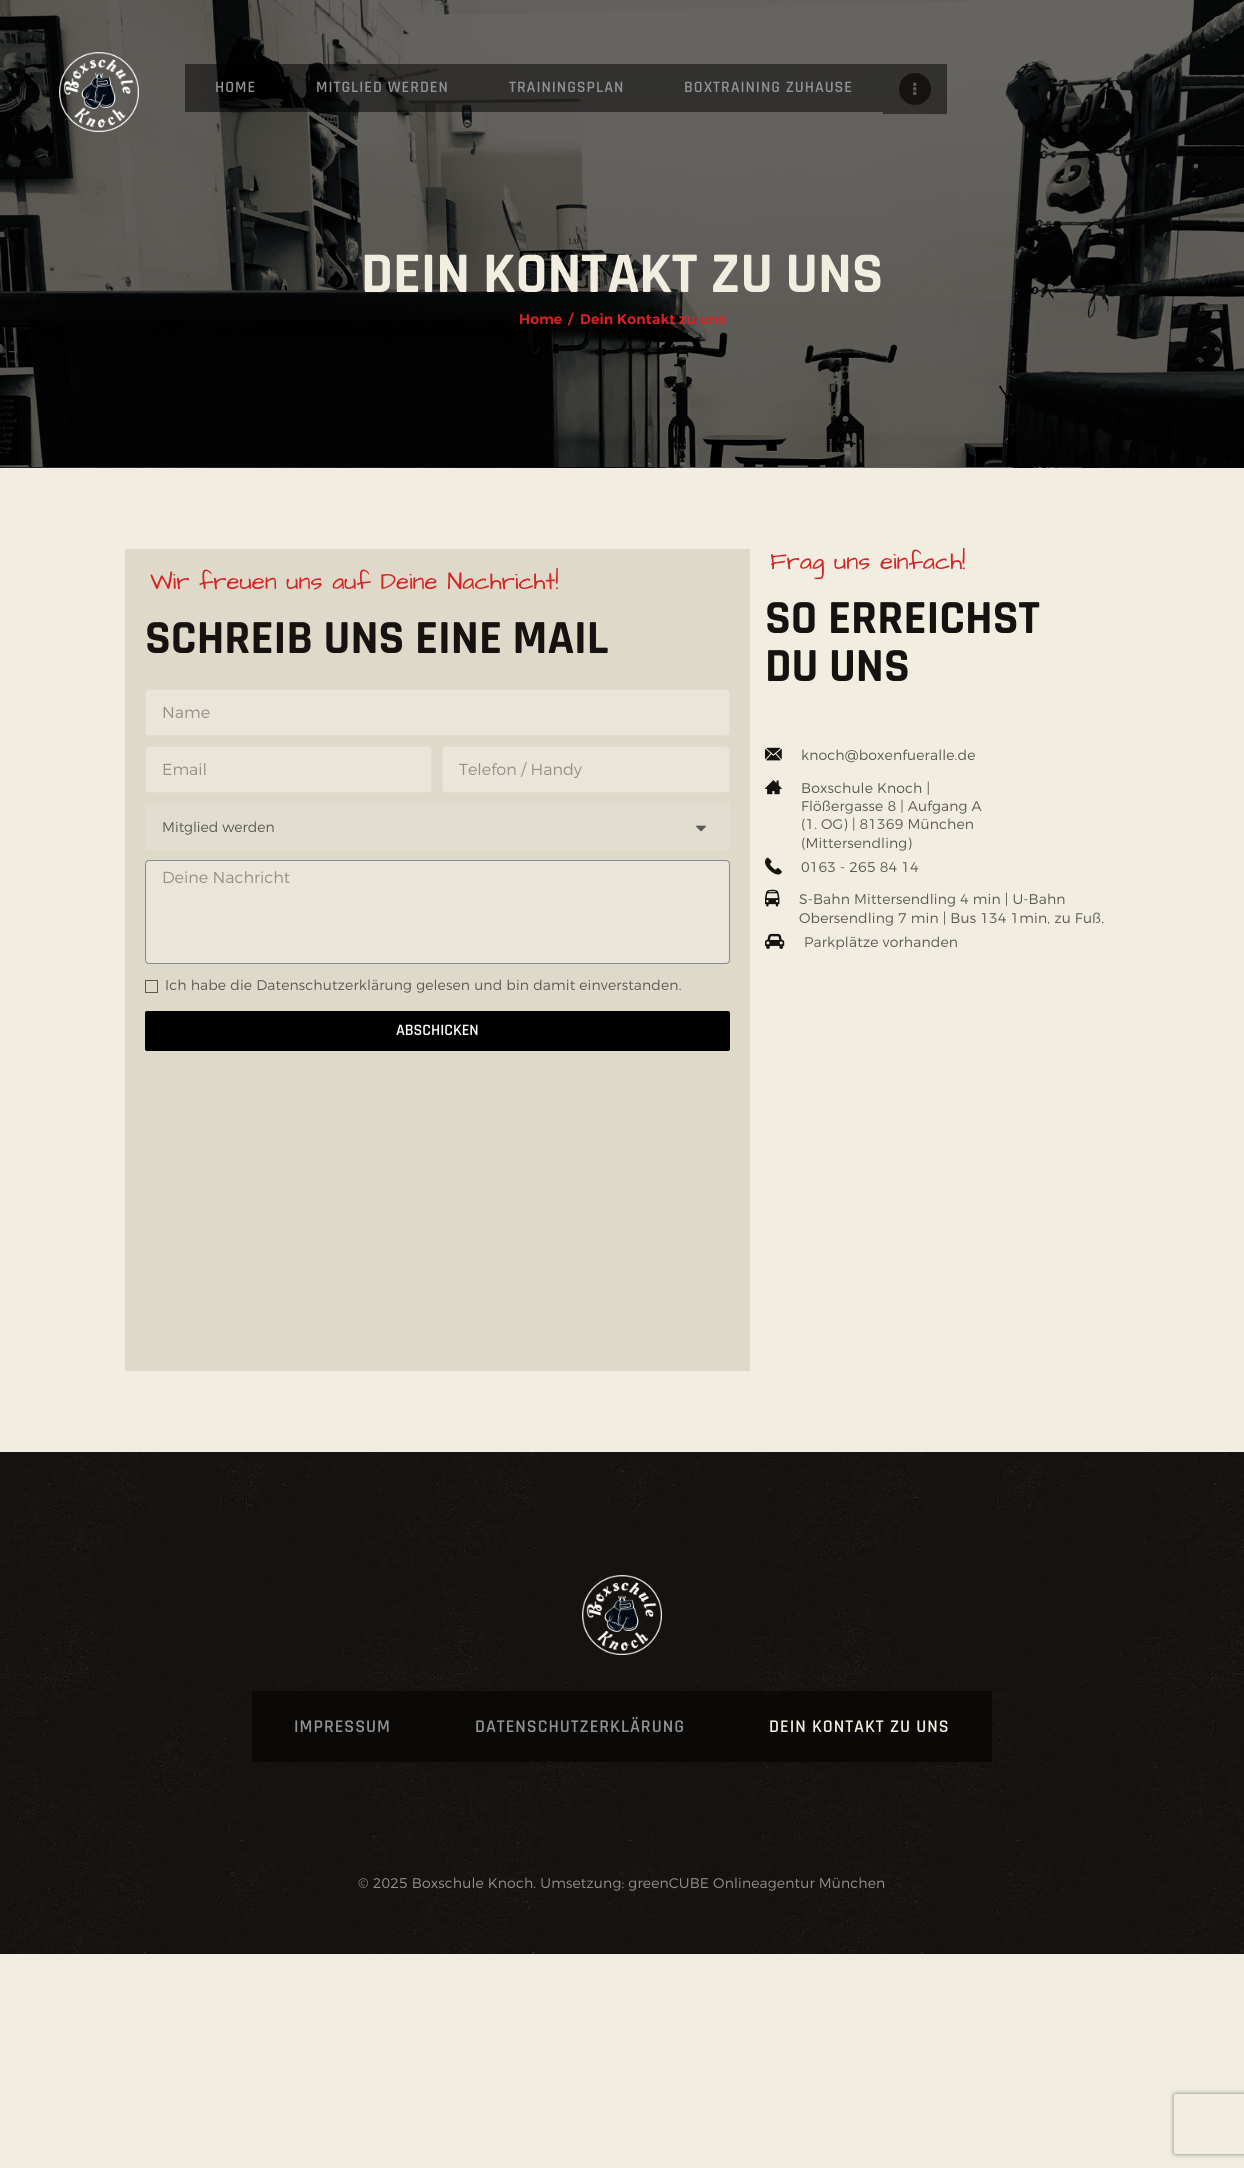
#include <cairo/cairo.h>
#include <math.h>
#include <stddef.h>

static cairo_t *cr;

static void use_color(int r, int g, int b) {
  cairo_set_source_rgb(cr, r / 255.0, g / 255.0, b / 255.0);
}

static void text(double x, double y, const char *s, const char *family, double size, int italic, int bold, int r, int g, int b) {
  cairo_select_font_face(cr, family, italic ? CAIRO_FONT_SLANT_ITALIC : CAIRO_FONT_SLANT_NORMAL,
    bold ? CAIRO_FONT_WEIGHT_BOLD : CAIRO_FONT_WEIGHT_NORMAL);
  cairo_set_font_size(cr, size);
  use_color(r, g, b);
  cairo_move_to(cr, x, y);
  cairo_show_text(cr, s);
}

static void spaced_text(double x, double y, const char *s, double letter, double word) {
  cairo_move_to(cr, x, y);
  while (*s) {
    char ch[5] = {0};
    int n = 0;
    do ch[n++] = *s++; while ((*s & 0xC0) == 0x80);
    cairo_show_text(cr, ch);
    cairo_rel_move_to(cr, letter + word * (*ch == ' '), 0);
  }
}

static void box(double x, double y, double w, double h, int r, int g, int b) {
  use_color(r, g, b);
  cairo_rectangle(cr, x, y, w, h);
  cairo_fill(cr);
}

static void round_rect(double x, double y, double w, double h, double r) {
  cairo_new_sub_path(cr);
  cairo_arc(cr, x + w - r, y + h - r, r, 0, M_PI / 2);
  cairo_arc(cr, x + r, y + h - r, r, M_PI / 2, M_PI);
  cairo_arc(cr, x + r, y + r, r, M_PI, 1.5 * M_PI);
  cairo_arc(cr, x + w - r, y + r, r, 1.5 * M_PI, 2 * M_PI);
  cairo_close_path(cr);
}

static void shadow(double x, double y, double w, double h, double r, double blur, double alpha) {
  cairo_push_group_with_content(cr, CAIRO_CONTENT_ALPHA);
  cairo_set_operator(cr, CAIRO_OPERATOR_SOURCE);
  for (int i = 15; i >= -15 && fmin(w, h) + blur * i / 3 > 0; i -= 2) {
    double e = blur * i / 6;
    cairo_set_source_rgba(cr, 0, 0, 0, alpha * erfc((i - 1) / 8.5) / 2);
    round_rect(x - e, y - e, w + 2 * e, h + 2 * e, fmax(0, fmin(r + e + blur * .6, fmin(w, h) / 2 + e)));
    cairo_fill(cr);
  }
  cairo_pattern_t *soft = cairo_pop_group(cr);
  cairo_mask(cr, soft);
  cairo_pattern_destroy(soft);
}

static void picture(const char *path, double x, double y, double w, double h) {
  cairo_surface_t *image = cairo_image_surface_create_from_png(path);
  cairo_save(cr);
  cairo_set_source_surface(cr, image, x, y);
  cairo_rectangle(cr, x, y, w, h);
  cairo_fill(cr);
  cairo_restore(cr);
  cairo_surface_destroy(image);
}

static void draw(void) {
  use_color(241, 237, 225);
  cairo_paint(cr);
  picture("img_01.png", 0, 0, 1244, 467);
  picture("img_02.png", 59, 52, 80, 80);
  cairo_set_source_rgba(cr, 0, 0, 0, 0.5);
  cairo_rectangle(cr, 185, 64, 101, 48);
  cairo_fill(cr);
  cairo_rectangle(cr, 286, 64, 193, 48);
  cairo_fill(cr);
  cairo_rectangle(cr, 479, 64, 175, 48);
  cairo_fill(cr);
  cairo_rectangle(cr, 654, 64, 229, 48);
  cairo_fill(cr);
  cairo_rectangle(cr, 883, 64, 64, 50);
  cairo_fill(cr);
  use_color(22, 18, 15);
  cairo_arc(cr, 915, 89, 16, 0, 2 * M_PI);
  cairo_fill(cr);
  picture("img_03.png", 913, 82, 4, 14);
  picture("img_04.png", 0, 467, 1244, 1);
  box(125, 549, 625, 822, 223, 217, 202);
  use_color(233, 229, 216);
  round_rect(145.5, 689.5, 584, 46, 3.5);
  cairo_fill_preserve(cr);
  use_color(225, 222, 207);
  cairo_set_line_width(cr, 1);
  cairo_stroke(cr);
  use_color(233, 229, 216);
  round_rect(145.5, 746.5, 286, 46, 3.5);
  cairo_fill_preserve(cr);
  use_color(225, 222, 207);
  cairo_stroke(cr);
  use_color(233, 229, 216);
  round_rect(442.5, 746.5, 287, 46, 3.5);
  cairo_fill_preserve(cr);
  use_color(225, 222, 207);
  cairo_stroke(cr);
  box(145, 803, 585, 47, 225, 221, 207);
  picture("img_05.png", 696, 825, 10, 7);
  use_color(233, 229, 216);
  round_rect(145.5, 860.5, 584, 103, 3.5);
  cairo_fill_preserve(cr);
  use_color(129, 138, 145);
  cairo_stroke(cr);
  cairo_rectangle(cr, 145.5, 980.5, 12, 12);
  use_color(91, 88, 83);
  cairo_stroke(cr);
  use_color(0, 0, 0);
  round_rect(145, 1011, 585, 40, 2);
  cairo_fill(cr);
  cairo_save(cr);
  cairo_set_fill_rule(cr, CAIRO_FILL_RULE_EVEN_ODD);
  cairo_new_path(cr);
  cairo_move_to(cr, 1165, 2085);
  cairo_line_to(cr, 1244, 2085);
  cairo_line_to(cr, 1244, 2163);
  cairo_line_to(cr, 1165, 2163);
  cairo_close_path(cr);
  cairo_move_to(cr, 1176, 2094);
  cairo_line_to(cr, 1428, 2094);
  cairo_curve_to(cr, 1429, 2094, 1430, 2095, 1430, 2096);
  cairo_line_to(cr, 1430, 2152);
  cairo_curve_to(cr, 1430, 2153, 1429, 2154, 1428, 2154);
  cairo_line_to(cr, 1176, 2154);
  cairo_curve_to(cr, 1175, 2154, 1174, 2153, 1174, 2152);
  cairo_line_to(cr, 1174, 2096);
  cairo_curve_to(cr, 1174, 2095, 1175, 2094, 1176, 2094);
  cairo_close_path(cr);
  cairo_clip(cr);
  use_color(128, 128, 128);
  shadow(1174, 2094, 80, 60, 2, 2.5, 1);
  cairo_restore(cr);
  picture("img_06.png", 765, 747, 17, 14);
  picture("img_07.png", 765, 780, 17, 15);
  picture("img_08.png", 765, 857, 17, 18);
  picture("img_09.png", 765, 889, 15, 18);
  picture("img_10.png", 765, 933, 20, 16);
  picture("img_11.png", 0, 1452, 1244, 502);
  picture("img_12.png", 582, 1575, 80, 80);
  cairo_set_source_rgba(cr, 0, 0, 0, 0.5);
  cairo_rectangle(cr, 252, 1691, 181, 71);
  cairo_fill(cr);
  cairo_rectangle(cr, 433, 1691, 294, 71);
  cairo_fill(cr);
  cairo_rectangle(cr, 727, 1691, 265, 71);
  cairo_fill(cr);
  cairo_select_font_face(cr, "Rajdhani SemiBold", CAIRO_FONT_SLANT_NORMAL, CAIRO_FONT_WEIGHT_NORMAL);
  cairo_set_font_size(cr, 16);
  use_color(146, 146, 146);
  spaced_text(215, 92, "HOME", 1, 0);
  spaced_text(316, 92, "MITGLIED WERDEN", 1, 0);
  spaced_text(509, 92, "TRAININGSPLAN", 1, 0);
  spaced_text(684, 92, "BOXTRAINING ZUHAUSE", 1, 0);
  text(361, 292, "DEIN KONTAKT ZU UNS", "Rajdhani", 58, 0, 1, 241, 237, 225);
  cairo_select_font_face(cr, "Montserrat SemiBold", CAIRO_FONT_SLANT_NORMAL, CAIRO_FONT_WEIGHT_NORMAL);
  cairo_set_font_size(cr, 14);
  use_color(215, 35, 35);
  spaced_text(519, 324, "Home", 0.15, 0);
  spaced_text(568, 324, "/", 0.15, 0);
  spaced_text(580, 324, "Dein Kontakt zu uns", 0.15, 0);
  text(150, 589, "Wir freuen uns auf Deine Nachricht!", "Architects Daughter", 24, 0, 0, 215, 35, 35);
  text(145, 653, "SCHREIB UNS EINE MAIL", "Rajdhani", 48, 0, 1, 22, 18, 15);
  text(162, 718, "Name", "Montserrat Light", 16, 0, 0, 148, 144, 136);
  text(162, 775, "Email", "Montserrat Light", 16, 0, 0, 148, 144, 136);
  text(459, 775, "Telefon / Handy", "Montserrat Light", 16, 0, 0, 148, 144, 136);
  text(162, 832, "Mitglied werden", "Montserrat Light", 14, 0, 0, 91, 88, 83);
  text(162, 883, "Deine Nachricht", "Montserrat Light", 16, 0, 0, 148, 144, 136);
  cairo_set_font_size(cr, 14);
  use_color(91, 88, 83);
  spaced_text(165, 990, "Ich habe die Datenschutzerklärung gelesen und bin damit einverstanden.", 0.15, 0);
  text(396, 1035, "ABSCHICKEN", "Rajdhani SemiBold", 16, 0, 0, 255, 255, 255);
  text(770, 569, "Frag uns einfach!", "Architects Daughter", 24, 0, 0, 215, 35, 35);
  text(765, 633, "SO ERREICHST", "Rajdhani", 48, 0, 1, 22, 18, 15);
  text(765, 681, "DU UNS", "Rajdhani", 48, 0, 1, 22, 18, 15);
  cairo_select_font_face(cr, "Montserrat Light", CAIRO_FONT_SLANT_NORMAL, CAIRO_FONT_WEIGHT_NORMAL);
  cairo_set_font_size(cr, 14);
  use_color(91, 88, 83);
  spaced_text(801, 760, "knoch@boxenfueralle.de", 0.15, 0);
  spaced_text(801, 793, "Boxschule Knoch |", 0.15, 0);
  spaced_text(801, 811, "Flößergasse 8 | Aufgang A", 0.15, 0);
  spaced_text(801, 829, "(1. OG) | 81369 München", 0.15, 0);
  spaced_text(801, 848, "(Mittersendling)", 0.15, 0);
  spaced_text(801, 872, "0163 - 265 84 14", 0.15, 0);
  spaced_text(799, 904, "S-Bahn Mittersendling 4 min | U-Bahn", 0.15, 0);
  spaced_text(799, 923, "Obersendling 7 min | Bus 134 1min, zu Fuß.", 0.15, 0);
  spaced_text(804, 947, "Parkplätze vorhanden", 0.15, 0);
  cairo_select_font_face(cr, "Rajdhani SemiBold", CAIRO_FONT_SLANT_NORMAL, CAIRO_FONT_WEIGHT_NORMAL);
  cairo_set_font_size(cr, 18);
  use_color(146, 146, 146);
  spaced_text(294, 1732, "IMPRESSUM", 1, 0);
  spaced_text(475, 1732, "DATENSCHUTZERKLÄRUNG", 1, 0);
  use_color(241, 237, 225);
  spaced_text(769, 1732, "DEIN KONTAKT ZU UNS", 1, 0);
  cairo_select_font_face(cr, "Montserrat Light", CAIRO_FONT_SLANT_NORMAL, CAIRO_FONT_WEIGHT_NORMAL);
  cairo_set_font_size(cr, 14);
  use_color(146, 146, 146);
  spaced_text(358, 1888, "© 2025 Boxschule Knoch. Umsetzung: greenCUBE Onlineagentur München", 0.15, 0);
}

int main(void) {
  cairo_surface_t *surface = cairo_image_surface_create(CAIRO_FORMAT_RGB24, 1244, 2168);
  cr = cairo_create(surface);
  cairo_font_options_t *options = cairo_font_options_create();
  cairo_font_options_set_hint_metrics(options, CAIRO_HINT_METRICS_OFF);
  cairo_font_options_set_hint_style(options, CAIRO_HINT_STYLE_NONE);
  cairo_set_font_options(cr, options);
  cairo_set_miter_limit(cr, 4);
  draw();
  cairo_surface_write_to_png(surface, "out.png");
  cairo_font_options_destroy(options);
  cairo_destroy(cr);
  cairo_surface_destroy(surface);
  return 0;
}
